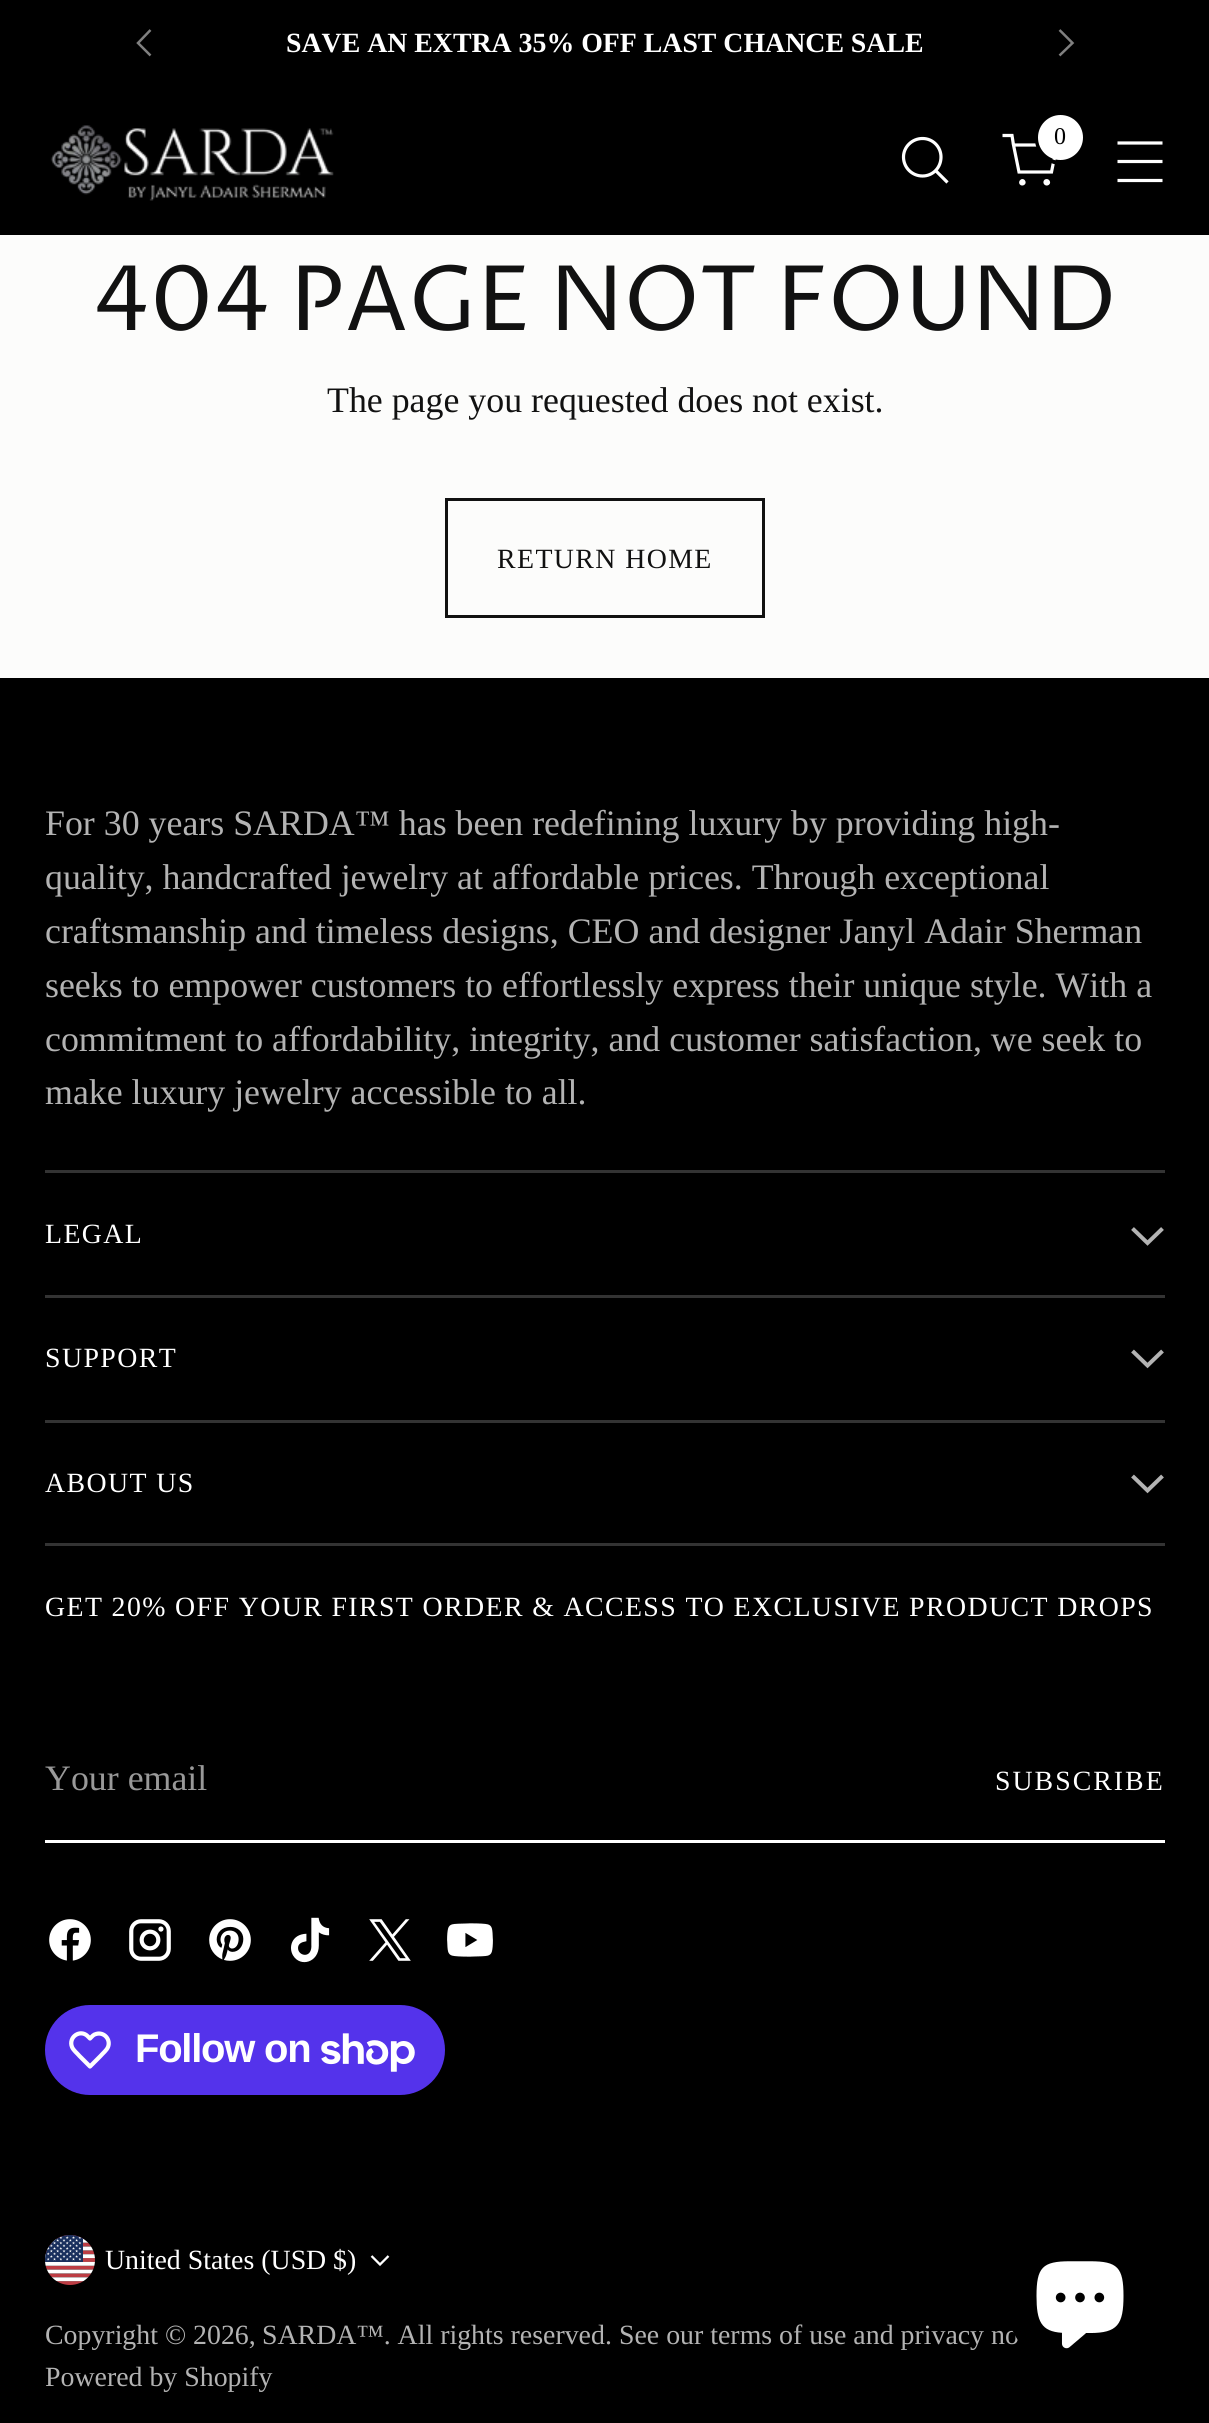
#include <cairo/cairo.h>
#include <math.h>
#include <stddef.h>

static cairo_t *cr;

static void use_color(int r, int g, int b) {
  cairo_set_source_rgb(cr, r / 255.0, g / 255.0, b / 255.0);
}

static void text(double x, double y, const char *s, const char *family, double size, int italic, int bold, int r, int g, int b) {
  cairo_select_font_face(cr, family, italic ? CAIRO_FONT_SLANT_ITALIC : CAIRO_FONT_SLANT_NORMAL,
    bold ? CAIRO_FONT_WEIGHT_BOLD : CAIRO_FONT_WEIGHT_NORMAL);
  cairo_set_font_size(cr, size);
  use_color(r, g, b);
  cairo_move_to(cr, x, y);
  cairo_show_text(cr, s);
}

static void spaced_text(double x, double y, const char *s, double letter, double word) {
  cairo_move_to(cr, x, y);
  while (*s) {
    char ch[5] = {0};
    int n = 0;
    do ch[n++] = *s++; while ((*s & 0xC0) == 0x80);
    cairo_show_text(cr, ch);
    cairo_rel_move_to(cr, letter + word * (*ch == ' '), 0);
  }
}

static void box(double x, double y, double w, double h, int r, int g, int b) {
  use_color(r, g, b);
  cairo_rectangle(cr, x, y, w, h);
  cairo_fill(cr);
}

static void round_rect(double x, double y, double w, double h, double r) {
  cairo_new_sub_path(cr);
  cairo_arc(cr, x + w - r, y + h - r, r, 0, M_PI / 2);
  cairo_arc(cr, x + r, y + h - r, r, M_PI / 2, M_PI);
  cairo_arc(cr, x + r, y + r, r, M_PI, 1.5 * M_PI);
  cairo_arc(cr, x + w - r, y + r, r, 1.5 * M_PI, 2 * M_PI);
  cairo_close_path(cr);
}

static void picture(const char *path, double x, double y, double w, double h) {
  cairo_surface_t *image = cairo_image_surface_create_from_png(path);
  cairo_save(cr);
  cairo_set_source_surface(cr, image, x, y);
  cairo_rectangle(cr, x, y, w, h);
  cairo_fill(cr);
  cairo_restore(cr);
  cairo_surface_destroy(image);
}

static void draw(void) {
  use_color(252, 252, 251);
  cairo_paint(cr);
  box(0, 0, 1209, 235, 0, 0, 0);
  cairo_new_path(cr);
  cairo_move_to(cr, 150.5, 30);
  cairo_line_to(cr, 138, 43);
  cairo_line_to(cr, 150.5, 55.5);
  use_color(128, 128, 128);
  cairo_set_line_width(cr, 2.5);
  cairo_stroke(cr);
  cairo_new_path(cr);
  cairo_move_to(cr, 1059.5, 55.5);
  cairo_line_to(cr, 1072.5, 43);
  cairo_line_to(cr, 1059.5, 30);
  cairo_stroke(cr);
  picture("img_01.png", 50, 125, 284, 76);
  cairo_new_path(cr);
  cairo_move_to(cr, 922.5, 176);
  cairo_curve_to(cr, 933, 176, 941, 167.5, 941, 157);
  cairo_curve_to(cr, 941, 147, 933, 138.5, 922.5, 138.5);
  cairo_curve_to(cr, 912, 138.5, 903.5, 147, 903.5, 157);
  cairo_curve_to(cr, 903.5, 167.5, 912, 176, 922.5, 176);
  cairo_close_path(cr);
  use_color(255, 255, 255);
  cairo_set_line_width(cr, 3.2);
  cairo_set_line_cap(cr, CAIRO_LINE_CAP_ROUND);
  cairo_stroke(cr);
  cairo_new_path(cr);
  cairo_move_to(cr, 936, 171);
  cairo_line_to(cr, 947.5, 182.5);
  cairo_set_line_cap(cr, CAIRO_LINE_CAP_BUTT);
  cairo_stroke(cr);
  cairo_new_path(cr);
  cairo_move_to(cr, 1013.5, 145);
  cairo_line_to(cr, 1057, 145);
  cairo_line_to(cr, 1051.5, 172);
  cairo_line_to(cr, 1019, 172);
  cairo_close_path(cr);
  cairo_move_to(cr, 1013.5, 145);
  cairo_line_to(cr, 1012, 135.5);
  cairo_line_to(cr, 1002.5, 135.5);
  cairo_stroke(cr);
  cairo_new_path(cr);
  cairo_move_to(cr, 1021.5, 181);
  cairo_curve_to(cr, 1023, 179.5, 1025, 182.5, 1023.5, 183.5);
  cairo_curve_to(cr, 1021.5, 185, 1019.5, 182.5, 1021.5, 181);
  cairo_close_path(cr);
  cairo_move_to(cr, 1045.5, 181);
  cairo_curve_to(cr, 1047.5, 179.5, 1049.5, 182.5, 1048, 183.5);
  cairo_curve_to(cr, 1046, 185, 1044, 182.5, 1045.5, 181);
  cairo_close_path(cr);
  cairo_set_line_cap(cr, CAIRO_LINE_CAP_ROUND);
  cairo_set_line_join(cr, CAIRO_LINE_JOIN_BEVEL);
  cairo_stroke(cr);
  round_rect(1037, 115, 49, 48, 24);
  use_color(0, 0, 0);
  cairo_set_line_width(cr, 4);
  cairo_set_line_cap(cr, CAIRO_LINE_CAP_BUTT);
  cairo_set_line_join(cr, CAIRO_LINE_JOIN_MITER);
  cairo_stroke(cr);
  use_color(255, 255, 255);
  cairo_arc(cr, 1060.5, 137.5, 22.5, 0, 2 * M_PI);
  cairo_fill(cr);
  cairo_new_path(cr);
  cairo_move_to(cr, 1117.5, 161.5);
  cairo_line_to(cr, 1162.5, 161.5);
  cairo_move_to(cr, 1117.5, 143);
  cairo_line_to(cr, 1162.5, 143);
  cairo_move_to(cr, 1117.5, 180.5);
  cairo_line_to(cr, 1162.5, 180.5);
  cairo_set_line_width(cr, 3.2);
  cairo_stroke(cr);
  cairo_rectangle(cr, 446.5, 499.5, 317, 117);
  use_color(17, 17, 17);
  cairo_set_line_width(cr, 3);
  cairo_stroke(cr);
  box(0, 678, 1209, 1745, 0, 0, 0);
  box(45, 1170, 1120, 3, 51, 51, 51);
  box(45, 1295, 1120, 3, 51, 51, 51);
  cairo_new_path(cr);
  cairo_move_to(cr, 1132.5, 1228.5);
  cairo_line_to(cr, 1147.5, 1243);
  cairo_line_to(cr, 1162.5, 1228.5);
  use_color(179, 179, 179);
  cairo_set_line_width(cr, 4);
  cairo_stroke(cr);
  box(45, 1420, 1120, 3, 51, 51, 51);
  cairo_new_path(cr);
  cairo_move_to(cr, 1132.5, 1351);
  cairo_line_to(cr, 1147.5, 1365.5);
  cairo_line_to(cr, 1162.5, 1351);
  use_color(179, 179, 179);
  cairo_stroke(cr);
  box(45, 1543, 1120, 3, 51, 51, 51);
  cairo_new_path(cr);
  cairo_move_to(cr, 1132.5, 1476);
  cairo_line_to(cr, 1147.5, 1490.5);
  cairo_line_to(cr, 1162.5, 1476);
  use_color(179, 179, 179);
  cairo_stroke(cr);
  box(45, 1840, 1120, 3, 255, 255, 255);
  picture("img_02.png", 49, 1919, 42, 42);
  picture("img_03.png", 129, 1919, 42, 42);
  picture("img_04.png", 209, 1919, 42, 42);
  picture("img_05.png", 291, 1917, 39, 46);
  picture("img_06.png", 369, 1919, 42, 42);
  picture("img_07.png", 447, 1923, 46, 34);
  use_color(84, 51, 235);
  round_rect(45, 2005, 400, 90, 45);
  cairo_fill(cr);
  cairo_new_path(cr);
  cairo_move_to(cr, 88, 2036.5);
  cairo_line_to(cr, 90, 2038.5);
  cairo_curve_to(cr, 92, 2036.5, 93.5, 2034.5, 96, 2034);
  cairo_curve_to(cr, 104, 2031.5, 111, 2039.5, 108, 2047);
  cairo_curve_to(cr, 106.5, 2050.5, 103, 2053, 100.5, 2056);
  cairo_line_to(cr, 90, 2066.5);
  cairo_line_to(cr, 79.5, 2056);
  cairo_curve_to(cr, 77, 2053, 73.5, 2050.5, 72, 2047);
  cairo_curve_to(cr, 68, 2037, 80.5, 2028.5, 88, 2036.5);
  cairo_close_path(cr);
  use_color(255, 255, 255);
  cairo_set_line_width(cr, 4.2);
  cairo_set_line_join(cr, CAIRO_LINE_JOIN_ROUND);
  cairo_stroke(cr);
  picture("img_08.png", 321, 2033, 94, 39);
  picture("img_09.png", 45, 2235, 50, 50);
  cairo_new_path(cr);
  cairo_move_to(cr, 371.5, 2256);
  cairo_line_to(cr, 380, 2264.5);
  cairo_line_to(cr, 388.5, 2256);
  cairo_set_line_width(cr, 2.3);
  cairo_set_line_join(cr, CAIRO_LINE_JOIN_MITER);
  cairo_stroke(cr);
  cairo_select_font_face(cr, "Liberation Serif", CAIRO_FONT_SLANT_NORMAL, CAIRO_FONT_WEIGHT_BOLD);
  cairo_set_font_size(cr, 27.85);
  spaced_text(286, 52, "SAVE AN EXTRA 35% OFF LAST CHANCE SALE", 0, -0.1);
  text(1054, 144, "0", "Liberation Serif", 24, 0, 0, 0, 0, 0);
  cairo_select_font_face(cr, "Proza Libre", CAIRO_FONT_SLANT_NORMAL, CAIRO_FONT_WEIGHT_NORMAL);
  cairo_set_font_size(cr, 90.1);
  use_color(17, 17, 17);
  spaced_text(93, 330, "404 PAGE NOT FOUND", -0.5, 0);
  text(327, 412, "The page you requested does not exist.", "Liberation Serif", 35.85, 0, 0, 17, 17, 17);
  cairo_set_font_size(cr, 27.85);
  spaced_text(497, 568, "RETURN HOME", 1.4, 0);
  text(45, 835, "For 30 years SARDA™ has been redefining luxury by providing high-", "Liberation Serif", 35.85, 0, 0, 179, 179, 179);
  text(45, 889, "quality, handcrafted jewelry at affordable prices. Through exceptional", "Liberation Serif", 35.85, 0, 0, 179, 179, 179);
  text(45, 943, "craftsmanship and timeless designs, CEO and designer Janyl Adair Sherman", "Liberation Serif", 35.85, 0, 0, 179, 179, 179);
  text(45, 997, "seeks to empower customers to effortlessly express their unique style. With a", "Liberation Serif", 35.85, 0, 0, 179, 179, 179);
  text(45, 1051, "commitment to affordability, integrity, and customer satisfaction, we seek to", "Liberation Serif", 35.85, 0, 0, 179, 179, 179);
  text(45, 1104, "make luxury jewelry accessible to all.", "Liberation Serif", 35.85, 0, 0, 179, 179, 179);
  cairo_set_font_size(cr, 27.85);
  use_color(255, 255, 255);
  spaced_text(45, 1243, "LEGAL", 1.4, 0);
  spaced_text(45, 1367, "SUPPORT", 1.4, 0);
  spaced_text(45, 1492, "ABOUT US", 1.4, 0);
  spaced_text(45, 1616, "GET 20% OFF YOUR FIRST ORDER & ACCESS TO EXCLUSIVE PRODUCT DROPS", 1.4, -0.1);
  text(45, 1790, "Your email", "Liberation Serif", 35.85, 0, 0, 153, 153, 153);
  cairo_set_font_size(cr, 27.85);
  use_color(255, 255, 255);
  spaced_text(995, 1790, "SUBSCRIBE", 2, 0);
  cairo_select_font_face(cr, "Liberation Sans", CAIRO_FONT_SLANT_NORMAL, CAIRO_FONT_WEIGHT_BOLD);
  cairo_set_font_size(cr, 40);
  spaced_text(135, 2062, "Follow on", -1.25, 0);
  text(105, 2269, "United States (USD", "Liberation Serif", 27.85, 0, 0, 255, 255, 255);
  text(333, 2269, "$)", "Liberation Serif", 27.85, 0, 0, 255, 255, 255);
  text(45, 2344, "Copyright © 2026,", "Liberation Serif", 27.85, 0, 0, 179, 179, 179);
  text(262, 2344, "SARDA™. All rights reserved.", "Liberation Serif", 27.85, 0, 0, 179, 179, 179);
  text(619, 2344, "See our terms of use and privacy no", "Liberation Serif", 27.85, 0, 0, 179, 179, 179);
  text(45, 2386, "Powered by Shopify", "Liberation Serif", 27.85, 0, 0, 179, 179, 179);
  use_color(0, 0, 0);
  cairo_new_path(cr);
  cairo_arc(cr, 1080, 2298, 75, 0, 2 * M_PI);
  cairo_fill(cr);
  picture("img_10.png", 1036, 2261, 88, 88);
}

int main(void) {
  cairo_surface_t *surface = cairo_image_surface_create(CAIRO_FORMAT_RGB24, 1209, 2423);
  cr = cairo_create(surface);
  cairo_font_options_t *options = cairo_font_options_create();
  cairo_font_options_set_hint_metrics(options, CAIRO_HINT_METRICS_OFF);
  cairo_font_options_set_hint_style(options, CAIRO_HINT_STYLE_NONE);
  cairo_set_font_options(cr, options);
  cairo_set_miter_limit(cr, 4);
  draw();
  cairo_surface_write_to_png(surface, "out.png");
  cairo_font_options_destroy(options);
  cairo_destroy(cr);
  cairo_surface_destroy(surface);
  return 0;
}
